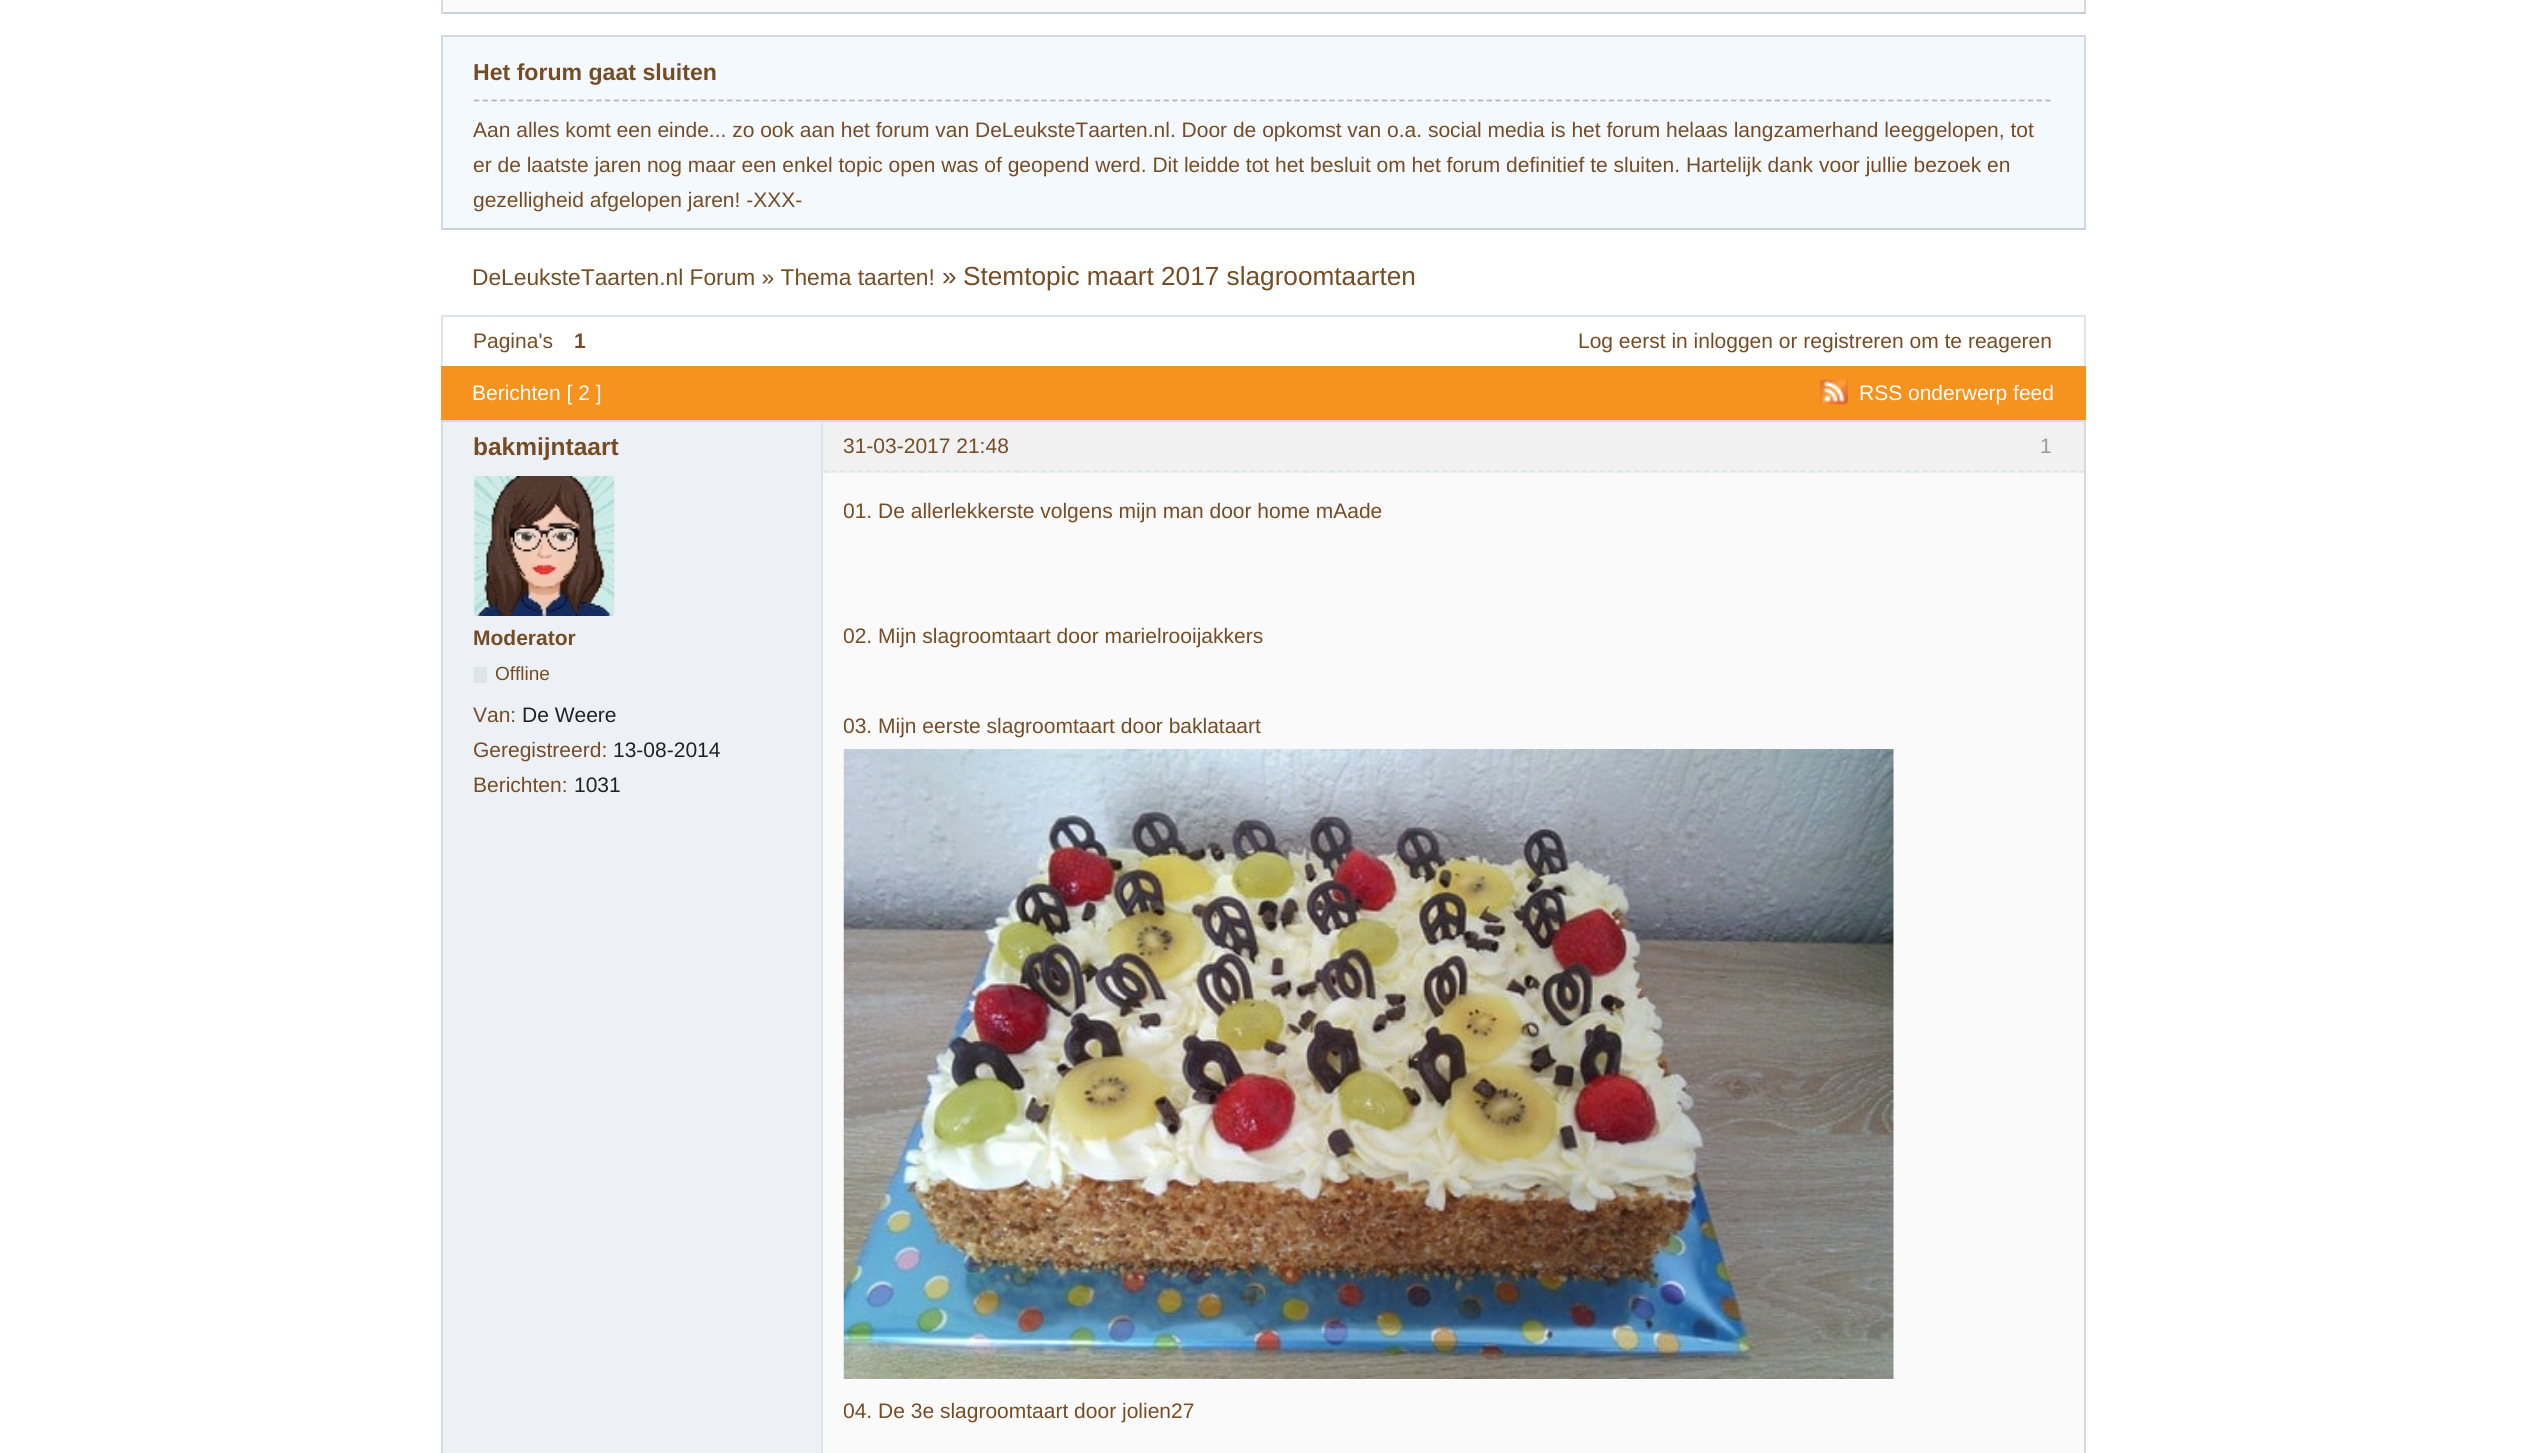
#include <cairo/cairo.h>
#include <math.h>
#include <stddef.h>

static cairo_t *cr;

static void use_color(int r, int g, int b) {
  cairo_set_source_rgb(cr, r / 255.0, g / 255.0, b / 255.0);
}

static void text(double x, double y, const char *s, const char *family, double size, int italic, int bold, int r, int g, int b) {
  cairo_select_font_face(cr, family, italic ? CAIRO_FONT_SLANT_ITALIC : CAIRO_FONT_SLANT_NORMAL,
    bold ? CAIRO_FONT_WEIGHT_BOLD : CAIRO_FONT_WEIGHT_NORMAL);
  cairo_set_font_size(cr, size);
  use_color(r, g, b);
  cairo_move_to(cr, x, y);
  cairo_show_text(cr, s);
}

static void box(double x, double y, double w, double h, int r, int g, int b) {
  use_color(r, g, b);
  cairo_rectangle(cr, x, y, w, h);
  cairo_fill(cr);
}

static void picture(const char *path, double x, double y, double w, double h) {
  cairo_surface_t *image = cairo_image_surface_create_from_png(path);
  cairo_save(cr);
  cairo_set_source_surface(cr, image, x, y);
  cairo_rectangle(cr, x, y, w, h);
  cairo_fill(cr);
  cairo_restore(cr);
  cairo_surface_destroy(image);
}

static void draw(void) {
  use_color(255, 255, 255);
  cairo_paint(cr);
  box(443, 0, 1641, 12, 251, 251, 251);
  box(2084, 0, 2, 14, 211, 218, 225);
  box(441, 12, 1645, 2, 203, 209, 216);
  box(441, 0, 2, 14, 211, 218, 225);
  box(443, 37, 1641, 191, 244, 249, 253);
  box(441, 35, 1645, 2, 211, 218, 225);
  box(2084, 35, 2, 194, 211, 218, 225);
  box(441, 228, 1645, 2, 203, 209, 216);
  box(441, 35, 2, 194, 211, 218, 225);
  cairo_new_path(cr);
  cairo_move_to(cr, 474, 100.5);
  cairo_line_to(cr, 2053, 100.5);
  use_color(187, 187, 187);
  cairo_set_line_width(cr, 1.8);
  cairo_set_dash(cr, (double[]){5.25, 3.48}, 2, 0);
  cairo_stroke(cr);
  box(441, 315, 1645, 2, 221, 228, 235);
  box(2084, 315, 2, 51, 221, 228, 235);
  box(441, 315, 2, 51, 221, 228, 235);
  box(441, 366, 1645, 54, 246, 146, 30);
  picture("img_01.png", 1820, 379, 28, 26);
  box(441, 420, 1645, 2, 211, 218, 225);
  box(2084, 420, 2, 1033, 211, 218, 225);
  box(441, 420, 2, 1033, 211, 218, 225);
  box(443, 422, 378, 1031, 237, 241, 245);
  box(823, 473, 1261, 980, 250, 250, 250);
  box(821, 422, 2, 1031, 221, 228, 235);
  box(823, 422, 1261, 51, 241, 241, 241);
  cairo_new_path(cr);
  cairo_move_to(cr, 822.5, 471.5);
  cairo_line_to(cr, 2084, 471.5);
  use_color(221, 228, 235);
  cairo_stroke(cr);
  picture("img_02.png", 474, 476, 141, 140);
  box(474, 667, 13, 16, 221, 228, 235);
  picture("img_03.png", 843, 749, 1051, 630);
  text(473, 80, "Het forum gaat sluiten", "Liberation Sans", 23.1, 0, 1, 117, 76, 36);
  text(473, 137, "Aan alles komt een einde... zo ook aan het forum van DeLeuksteTaarten.nl. Door de opkomst van o.a. social media is het forum helaas langzamerhand leeggelopen, tot", "Liberation Sans", 21, 0, 0, 117, 76, 36);
  text(473, 172, "er de laatste jaren nog maar een enkel topic open was of geopend werd. Dit leidde tot het besluit om het forum definitief te sluiten. Hartelijk dank voor jullie bezoek en", "Liberation Sans", 21, 0, 0, 117, 76, 36);
  text(473, 207, "gezelligheid afgelopen jaren! -XXX-", "Liberation Sans", 21, 0, 0, 117, 76, 36);
  text(472, 285, "DeLeuksteTaarten.nl Forum » Thema taarten!", "Liberation Sans", 22.75, 0, 0, 117, 76, 36);
  text(942, 285, "»", "Liberation Sans", 26.2, 0, 0, 117, 76, 36);
  text(963, 285, "Stemtopic maart 2017 slagroomtaarten", "Liberation Sans", 26.2, 0, 0, 117, 76, 36);
  text(473, 348, "Pagina's", "Liberation Sans", 21, 0, 0, 117, 76, 36);
  text(574, 348, "1", "Liberation Sans", 21, 0, 1, 117, 76, 36);
  text(1578, 348, "Log eerst in inloggen or registreren om te reageren", "Liberation Sans", 21, 0, 0, 117, 76, 36);
  text(472, 400, "Berichten [ 2 ]", "Liberation Sans", 21, 0, 0, 255, 255, 255);
  text(1859, 400, "RSS onderwerp feed", "Liberation Sans", 21, 0, 0, 255, 255, 255);
  text(473, 455, "bakmijntaart", "Liberation Sans", 24.5, 0, 1, 117, 76, 36);
  text(843, 453, "31-03-2017 21:48", "Liberation Sans", 21, 0, 0, 117, 76, 36);
  text(2040, 453, "1", "Liberation Sans", 21, 0, 0, 153, 153, 153);
  text(473, 645, "Moderator", "Liberation Sans", 21, 0, 1, 117, 76, 36);
  text(495, 680, "Offline", "Liberation Sans", 19, 0, 0, 117, 76, 36);
  text(473, 722, "Van:", "Liberation Sans", 21, 0, 0, 117, 76, 36);
  text(522, 722, "De Weere", "Liberation Sans", 21, 0, 0, 34, 34, 34);
  text(473, 757, "Geregistreerd:", "Liberation Sans", 21, 0, 0, 117, 76, 36);
  text(613, 757, "13-08-2014", "Liberation Sans", 21, 0, 0, 34, 34, 34);
  text(473, 792, "Berichten:", "Liberation Sans", 21, 0, 0, 117, 76, 36);
  text(574, 792, "1031", "Liberation Sans", 21, 0, 0, 34, 34, 34);
  cairo_save(cr);
  cairo_rectangle(cr, 844, 487, 1209, 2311);
  cairo_clip(cr);
  text(843, 518, "01. De allerlekkerste volgens mijn man door home mAade", "Liberation Sans", 21, 0, 0, 117, 76, 36);
  text(843, 643, "02. Mijn slagroomtaart door marielrooijakkers", "Liberation Sans", 21, 0, 0, 117, 76, 36);
  text(843, 733, "03. Mijn eerste slagroomtaart door baklataart", "Liberation Sans", 21, 0, 0, 117, 76, 36);
  text(843, 1418, "04. De 3e slagroomtaart door jolien27", "Liberation Sans", 21, 0, 0, 117, 76, 36);
  cairo_restore(cr);
}

int main(void) {
  cairo_surface_t *surface = cairo_image_surface_create(CAIRO_FORMAT_RGB24, 2524, 1453);
  cr = cairo_create(surface);
  cairo_font_options_t *options = cairo_font_options_create();
  cairo_font_options_set_hint_metrics(options, CAIRO_HINT_METRICS_OFF);
  cairo_font_options_set_hint_style(options, CAIRO_HINT_STYLE_NONE);
  cairo_set_font_options(cr, options);
  cairo_set_miter_limit(cr, 4);
  draw();
  cairo_surface_write_to_png(surface, "out.png");
  cairo_font_options_destroy(options);
  cairo_destroy(cr);
  cairo_surface_destroy(surface);
  return 0;
}
